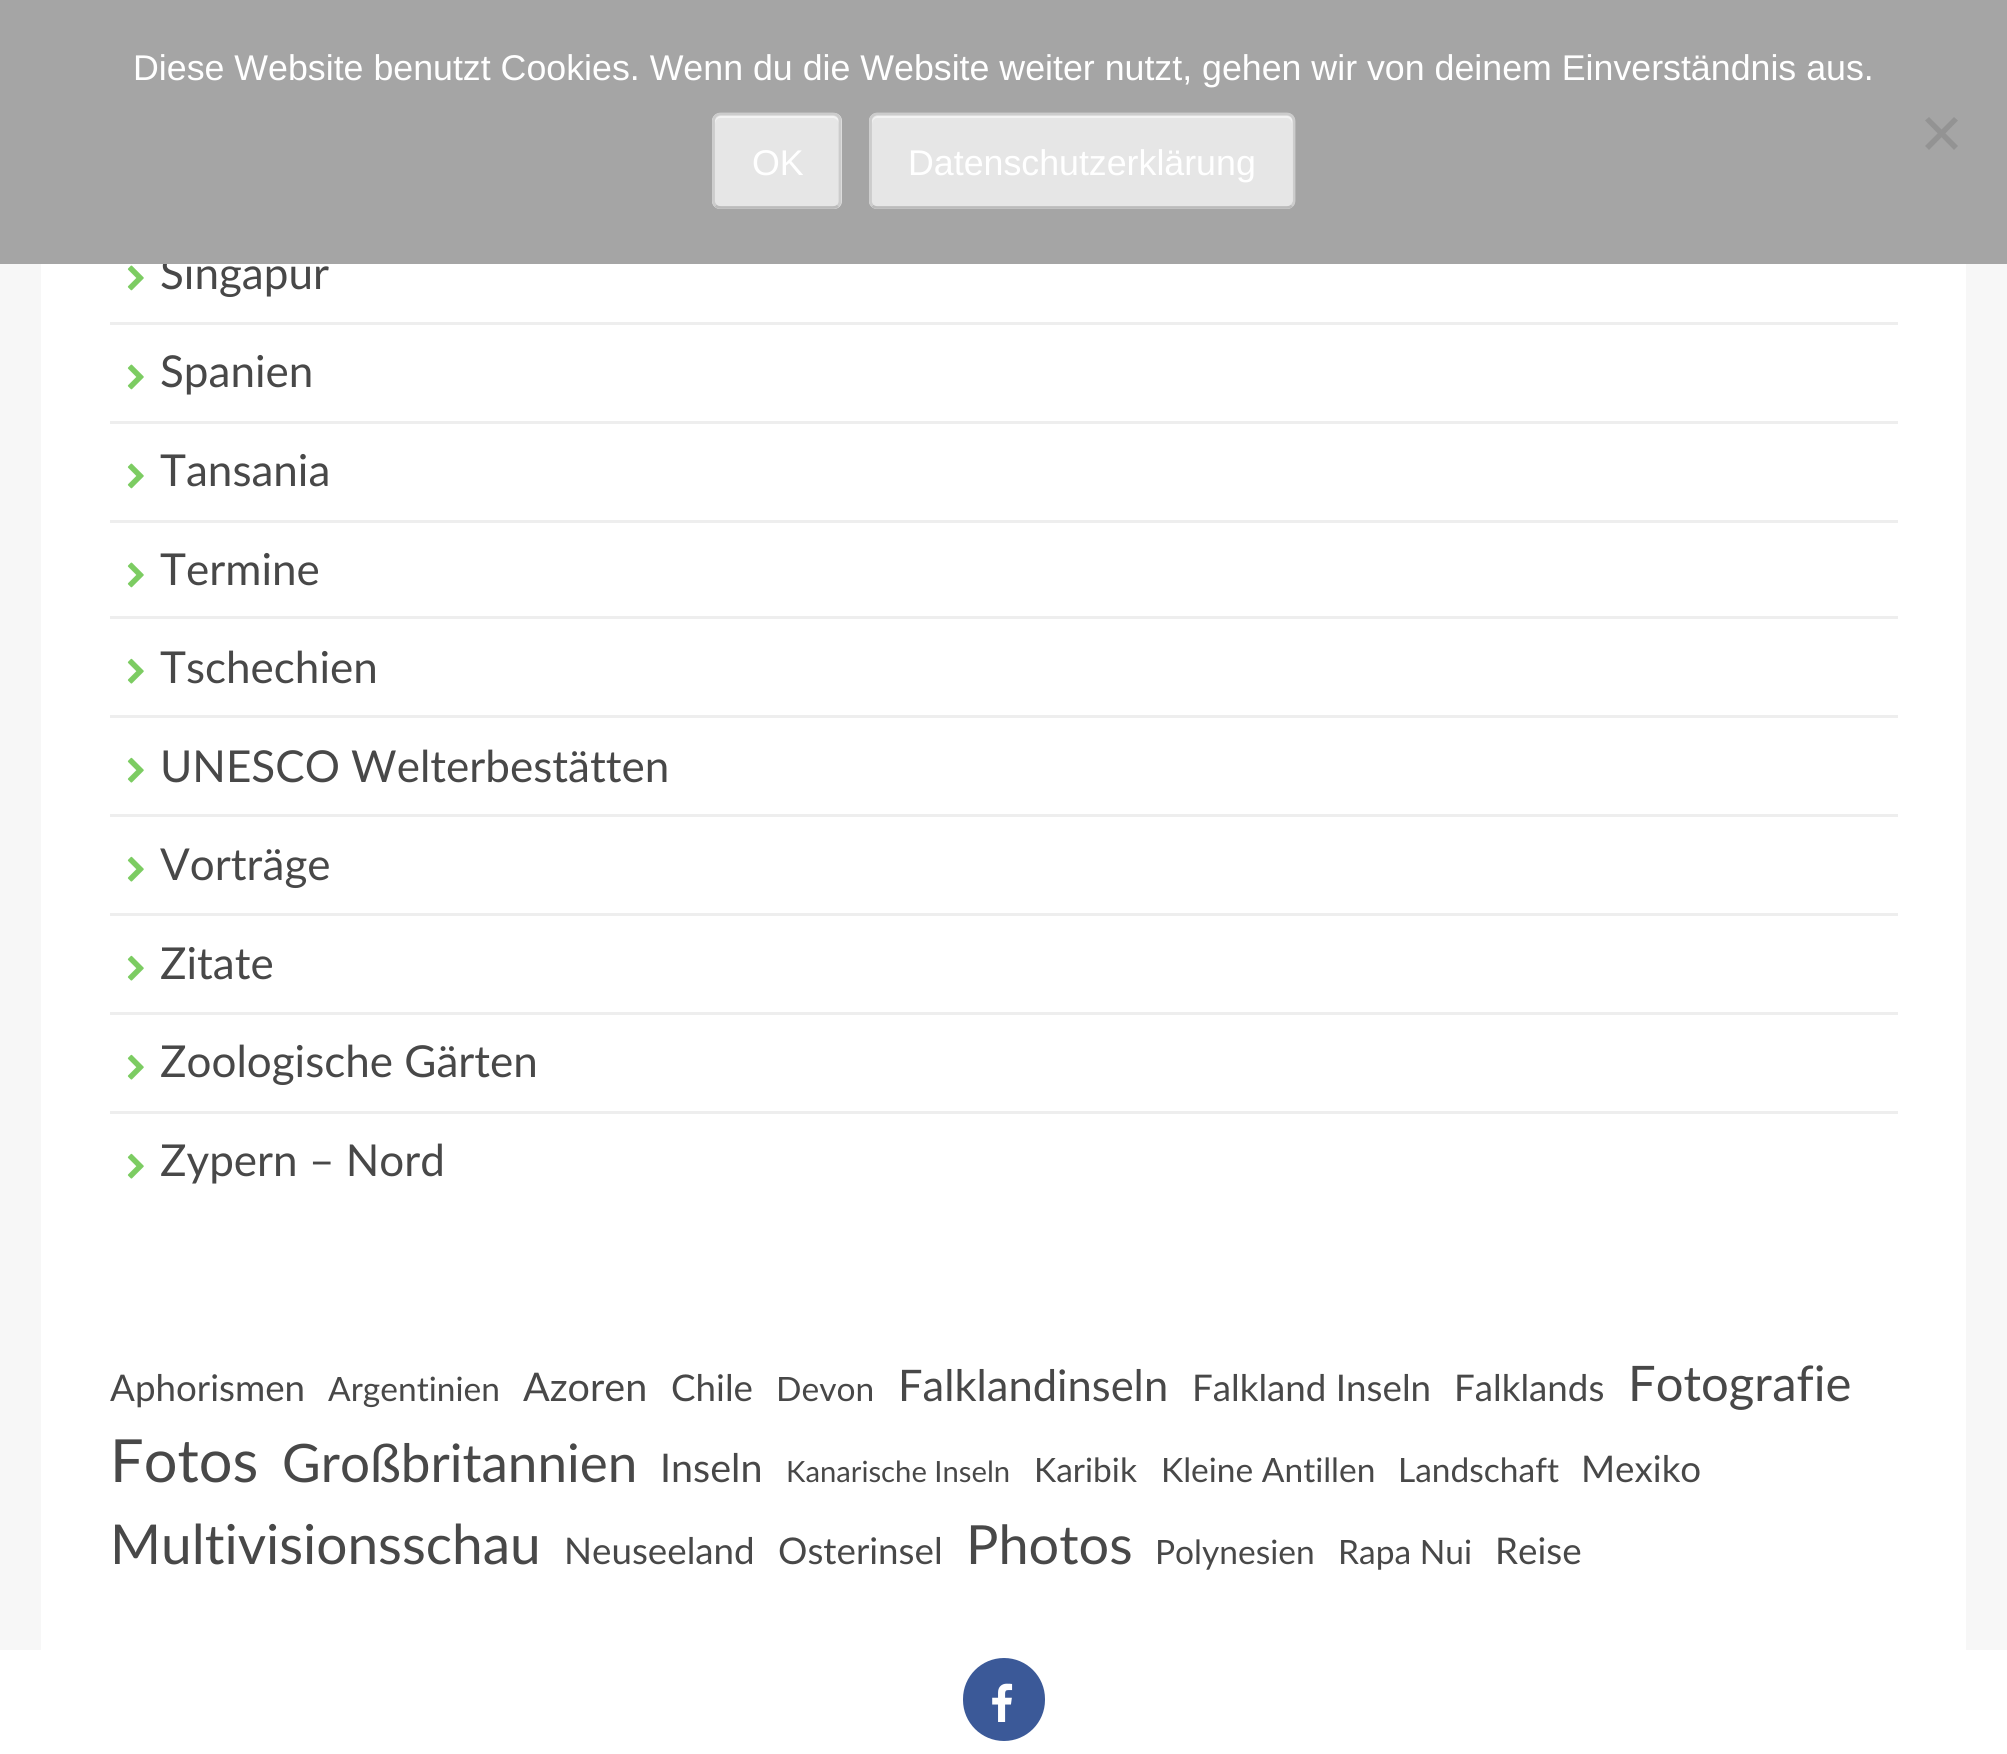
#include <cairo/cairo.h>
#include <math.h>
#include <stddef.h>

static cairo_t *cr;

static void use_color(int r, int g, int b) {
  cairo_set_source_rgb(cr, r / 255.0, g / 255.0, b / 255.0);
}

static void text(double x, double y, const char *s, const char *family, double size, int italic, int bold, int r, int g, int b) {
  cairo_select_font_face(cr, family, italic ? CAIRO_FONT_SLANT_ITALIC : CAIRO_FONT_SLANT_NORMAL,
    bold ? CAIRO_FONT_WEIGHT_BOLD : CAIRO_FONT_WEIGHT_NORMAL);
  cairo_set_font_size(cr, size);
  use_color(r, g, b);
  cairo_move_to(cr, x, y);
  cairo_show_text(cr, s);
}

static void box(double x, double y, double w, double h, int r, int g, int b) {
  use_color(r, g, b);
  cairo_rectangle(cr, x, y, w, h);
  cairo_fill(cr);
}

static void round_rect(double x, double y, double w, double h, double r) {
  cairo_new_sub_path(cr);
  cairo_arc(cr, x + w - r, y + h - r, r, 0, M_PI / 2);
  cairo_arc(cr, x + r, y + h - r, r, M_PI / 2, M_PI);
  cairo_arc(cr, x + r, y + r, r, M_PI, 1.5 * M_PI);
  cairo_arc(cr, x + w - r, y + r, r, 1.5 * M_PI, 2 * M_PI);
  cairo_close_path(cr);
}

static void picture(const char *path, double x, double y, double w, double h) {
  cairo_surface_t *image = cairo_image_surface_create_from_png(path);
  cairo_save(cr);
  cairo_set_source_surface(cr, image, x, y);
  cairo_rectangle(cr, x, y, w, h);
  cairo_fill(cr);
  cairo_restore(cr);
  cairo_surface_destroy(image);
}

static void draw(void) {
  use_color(247, 247, 247);
  cairo_paint(cr);
  box(41, 264, 1925, 1386, 255, 255, 255);
  box(110, 322, 1788, 3, 238, 238, 238);
  picture("img_01.png", 127, 265, 17, 26);
  box(110, 421, 1788, 3, 238, 238, 238);
  picture("img_01.png", 127, 364, 17, 26);
  box(110, 520, 1788, 3, 238, 238, 238);
  picture("img_01.png", 127, 463, 17, 26);
  box(110, 616, 1788, 3, 238, 238, 238);
  picture("img_01.png", 127, 562, 17, 26);
  box(110, 715, 1788, 3, 238, 238, 238);
  picture("img_02.png", 127, 658, 17, 26);
  box(110, 814, 1788, 3, 238, 238, 238);
  picture("img_02.png", 127, 757, 17, 26);
  box(110, 913, 1788, 3, 238, 238, 238);
  picture("img_02.png", 127, 856, 17, 26);
  box(110, 1012, 1788, 3, 238, 238, 238);
  picture("img_02.png", 127, 955, 17, 26);
  box(110, 1111, 1788, 3, 238, 238, 238);
  picture("img_02.png", 127, 1054, 17, 26);
  picture("img_02.png", 127, 1153, 17, 26);
  box(0, 1650, 2007, 104, 255, 255, 255);
  use_color(59, 89, 152);
  round_rect(963, 1658, 82, 83, 41);
  cairo_fill(cr);
  picture("img_03.png", 992, 1683, 21, 39);
  text(160, 289, "Singapur", "Lato", 44, 0, 0, 72, 72, 72);
  box(0, 0, 2007, 264, 165, 165, 165);
  use_color(147, 147, 147);
  cairo_new_path(cr);
  cairo_move_to(cr, 1954, 117);
  cairo_line_to(cr, 1958, 120.5);
  cairo_line_to(cr, 1929, 150);
  cairo_line_to(cr, 1925, 146);
  cairo_close_path(cr);
  cairo_fill(cr);
  cairo_new_path(cr);
  cairo_move_to(cr, 1925, 120.5);
  cairo_line_to(cr, 1929, 117);
  cairo_line_to(cr, 1958, 146);
  cairo_line_to(cr, 1954, 150);
  cairo_close_path(cr);
  cairo_fill(cr);
  use_color(230, 230, 230);
  round_rect(869, 113, 426, 96, 8);
  cairo_fill(cr);
  cairo_new_path(cr);
  cairo_move_to(cr, 1292, 205.5);
  cairo_curve_to(cr, 1290.5, 207, 1289, 207.5, 1287, 207.5);
  cairo_line_to(cr, 877, 207.5);
  cairo_curve_to(cr, 875.5, 207.5, 873.5, 207, 872.5, 205.5);
  use_color(187, 187, 187);
  cairo_set_line_width(cr, 2.8);
  cairo_stroke(cr);
  use_color(243, 243, 243);
  cairo_new_path(cr);
  cairo_move_to(cr, 877, 118);
  cairo_line_to(cr, 1287, 118);
  cairo_curve_to(cr, 1290, 118, 1292, 121, 1292, 124);
  cairo_line_to(cr, 1292, 203);
  cairo_curve_to(cr, 1293, 202, 1293, 201, 1293, 200);
  cairo_line_to(cr, 1293, 122);
  cairo_curve_to(cr, 1293, 119, 1290, 116, 1287, 116);
  cairo_line_to(cr, 878, 116);
  cairo_curve_to(cr, 875, 116, 872, 119, 872, 122);
  cairo_line_to(cr, 872, 124);
  cairo_curve_to(cr, 872, 121, 874, 118, 877, 118);
  cairo_close_path(cr);
  cairo_fill(cr);
  cairo_new_path(cr);
  cairo_move_to(cr, 872.5, 205.5);
  cairo_curve_to(cr, 871, 204.5, 870.5, 202.5, 870.5, 201);
  cairo_line_to(cr, 870.5, 121);
  cairo_curve_to(cr, 870.5, 119, 871, 117.5, 872.5, 116);
  cairo_curve_to(cr, 873.5, 115, 875.5, 114, 877, 114);
  cairo_line_to(cr, 1287, 114);
  cairo_curve_to(cr, 1289, 114, 1290.5, 115, 1292, 116);
  cairo_curve_to(cr, 1293, 117.5, 1294, 119, 1294, 121);
  cairo_line_to(cr, 1294, 201);
  cairo_curve_to(cr, 1294, 202.5, 1293, 204.5, 1292, 205.5);
  use_color(204, 204, 204);
  cairo_stroke(cr);
  text(908, 175, "Datenschutzerklärung", "Liberation Sans", 35.75, 0, 0, 255, 255, 255);
  use_color(230, 230, 230);
  round_rect(712, 113, 130, 96, 8);
  cairo_fill(cr);
  cairo_new_path(cr);
  cairo_move_to(cr, 838, 205.5);
  cairo_curve_to(cr, 837, 207, 835, 207.5, 833, 207.5);
  cairo_line_to(cr, 720.5, 207.5);
  cairo_curve_to(cr, 718.5, 207.5, 717, 207, 715.5, 205.5);
  use_color(187, 187, 187);
  cairo_stroke(cr);
  use_color(243, 243, 243);
  cairo_new_path(cr);
  cairo_move_to(cr, 720, 118);
  cairo_line_to(cr, 833, 118);
  cairo_curve_to(cr, 836, 118, 839, 121, 839, 124);
  cairo_line_to(cr, 839, 122);
  cairo_curve_to(cr, 839, 119, 836, 116, 833, 116);
  cairo_line_to(cr, 721, 116);
  cairo_curve_to(cr, 718, 116, 715, 119, 715, 122);
  cairo_line_to(cr, 715, 124);
  cairo_curve_to(cr, 715, 121, 717, 118, 720, 118);
  cairo_close_path(cr);
  cairo_fill(cr);
  cairo_new_path(cr);
  cairo_move_to(cr, 715.5, 205.5);
  cairo_curve_to(cr, 714.5, 204.5, 713.5, 202.5, 713.5, 201);
  cairo_line_to(cr, 713.5, 121);
  cairo_curve_to(cr, 713.5, 119, 714.5, 117.5, 715.5, 116);
  cairo_curve_to(cr, 717, 115, 718.5, 114, 720.5, 114);
  cairo_line_to(cr, 833, 114);
  cairo_curve_to(cr, 835, 114, 837, 115, 838, 116);
  cairo_curve_to(cr, 839.5, 117.5, 840, 119, 840, 121);
  cairo_line_to(cr, 840, 201);
  cairo_curve_to(cr, 840, 202.5, 839.5, 204.5, 838, 205.5);
  use_color(204, 204, 204);
  cairo_stroke(cr);
  text(752, 175, "OK", "Liberation Sans", 35.75, 0, 0, 255, 255, 255);
  text(133, 80, "Diese Website benutzt Cookies. Wenn du die Website weiter nutzt, gehen wir von deinem Einverständnis aus.", "Liberation Sans", 35.75, 0, 0, 255, 255, 255);
  text(160, 387, "Spanien", "Lato", 44, 0, 0, 72, 72, 72);
  text(160, 486, "Tansania", "Lato", 44, 0, 0, 72, 72, 72);
  text(160, 585, "Termine", "Lato", 44, 0, 0, 72, 72, 72);
  text(160, 683, "Tschechien", "Lato", 44, 0, 0, 72, 72, 72);
  text(160, 782, "UNESCO Welterbestätten", "Lato", 44, 0, 0, 72, 72, 72);
  text(160, 880, "Vorträge", "Lato", 44, 0, 0, 72, 72, 72);
  text(160, 979, "Zitate", "Lato", 44, 0, 0, 72, 72, 72);
  text(160, 1077, "Zoologische Gärten", "Lato", 44, 0, 0, 72, 72, 72);
  text(160, 1176, "Zypern – Nord", "Lato", 44, 0, 0, 72, 72, 72);
  text(110, 1401, "Aphorismen", "Lato", 36.75, 0, 0, 72, 72, 72);
  text(328, 1401, "Argentinien", "Lato", 33.5, 0, 0, 72, 72, 72);
  text(523, 1401, "Azoren", "Lato", 39.5, 0, 0, 72, 72, 72);
  text(671, 1401, "Chile", "Lato", 36.75, 0, 0, 72, 72, 72);
  text(776, 1401, "Devon", "Lato", 33.5, 0, 0, 72, 72, 72);
  text(898, 1401, "Falklandinseln", "Lato", 43.5, 0, 0, 72, 72, 72);
  text(1192, 1401, "Falkland Inseln", "Lato", 36.75, 0, 0, 72, 72, 72);
  text(1454, 1401, "Falklands", "Lato", 36.75, 0, 0, 72, 72, 72);
  text(1628, 1401, "Fotografie", "Lato", 49, 0, 0, 72, 72, 72);
  text(110, 1482, "Fotos", "Lato", 59.5, 0, 0, 72, 72, 72);
  text(282, 1482, "Großbritannien", "Lato", 53, 0, 0, 72, 72, 72);
  text(660, 1482, "Inseln", "Lato", 39.5, 0, 0, 72, 72, 72);
  text(786, 1482, "Kanarische Inseln", "Lato", 29.25, 0, 0, 72, 72, 72);
  text(1034, 1482, "Karibik", "Lato", 33.5, 0, 0, 72, 72, 72);
  text(1161, 1482, "Kleine Antillen", "Lato", 33.5, 0, 0, 72, 72, 72);
  text(1398, 1482, "Landschaft", "Lato", 33.5, 0, 0, 72, 72, 72);
  text(1581, 1482, "Mexiko", "Lato", 36.75, 0, 0, 72, 72, 72);
  text(110, 1564, "Multivisionsschau", "Lato", 55, 0, 0, 72, 72, 72);
  text(564, 1564, "Neuseeland", "Lato", 36.75, 0, 0, 72, 72, 72);
  text(778, 1564, "Osterinsel", "Lato", 36.75, 0, 0, 72, 72, 72);
  text(966, 1564, "Photos", "Lato", 54, 0, 0, 72, 72, 72);
  text(1155, 1564, "Polynesien", "Lato", 33.5, 0, 0, 72, 72, 72);
  text(1338, 1564, "Rapa Nui", "Lato", 33.5, 0, 0, 72, 72, 72);
  text(1495, 1564, "Reise", "Lato", 36.75, 0, 0, 72, 72, 72);
}

int main(void) {
  cairo_surface_t *surface = cairo_image_surface_create(CAIRO_FORMAT_RGB24, 2007, 1754);
  cr = cairo_create(surface);
  cairo_font_options_t *options = cairo_font_options_create();
  cairo_font_options_set_hint_metrics(options, CAIRO_HINT_METRICS_OFF);
  cairo_font_options_set_hint_style(options, CAIRO_HINT_STYLE_NONE);
  cairo_set_font_options(cr, options);
  cairo_set_miter_limit(cr, 4);
  draw();
  cairo_surface_write_to_png(surface, "out.png");
  cairo_font_options_destroy(options);
  cairo_destroy(cr);
  cairo_surface_destroy(surface);
  return 0;
}
